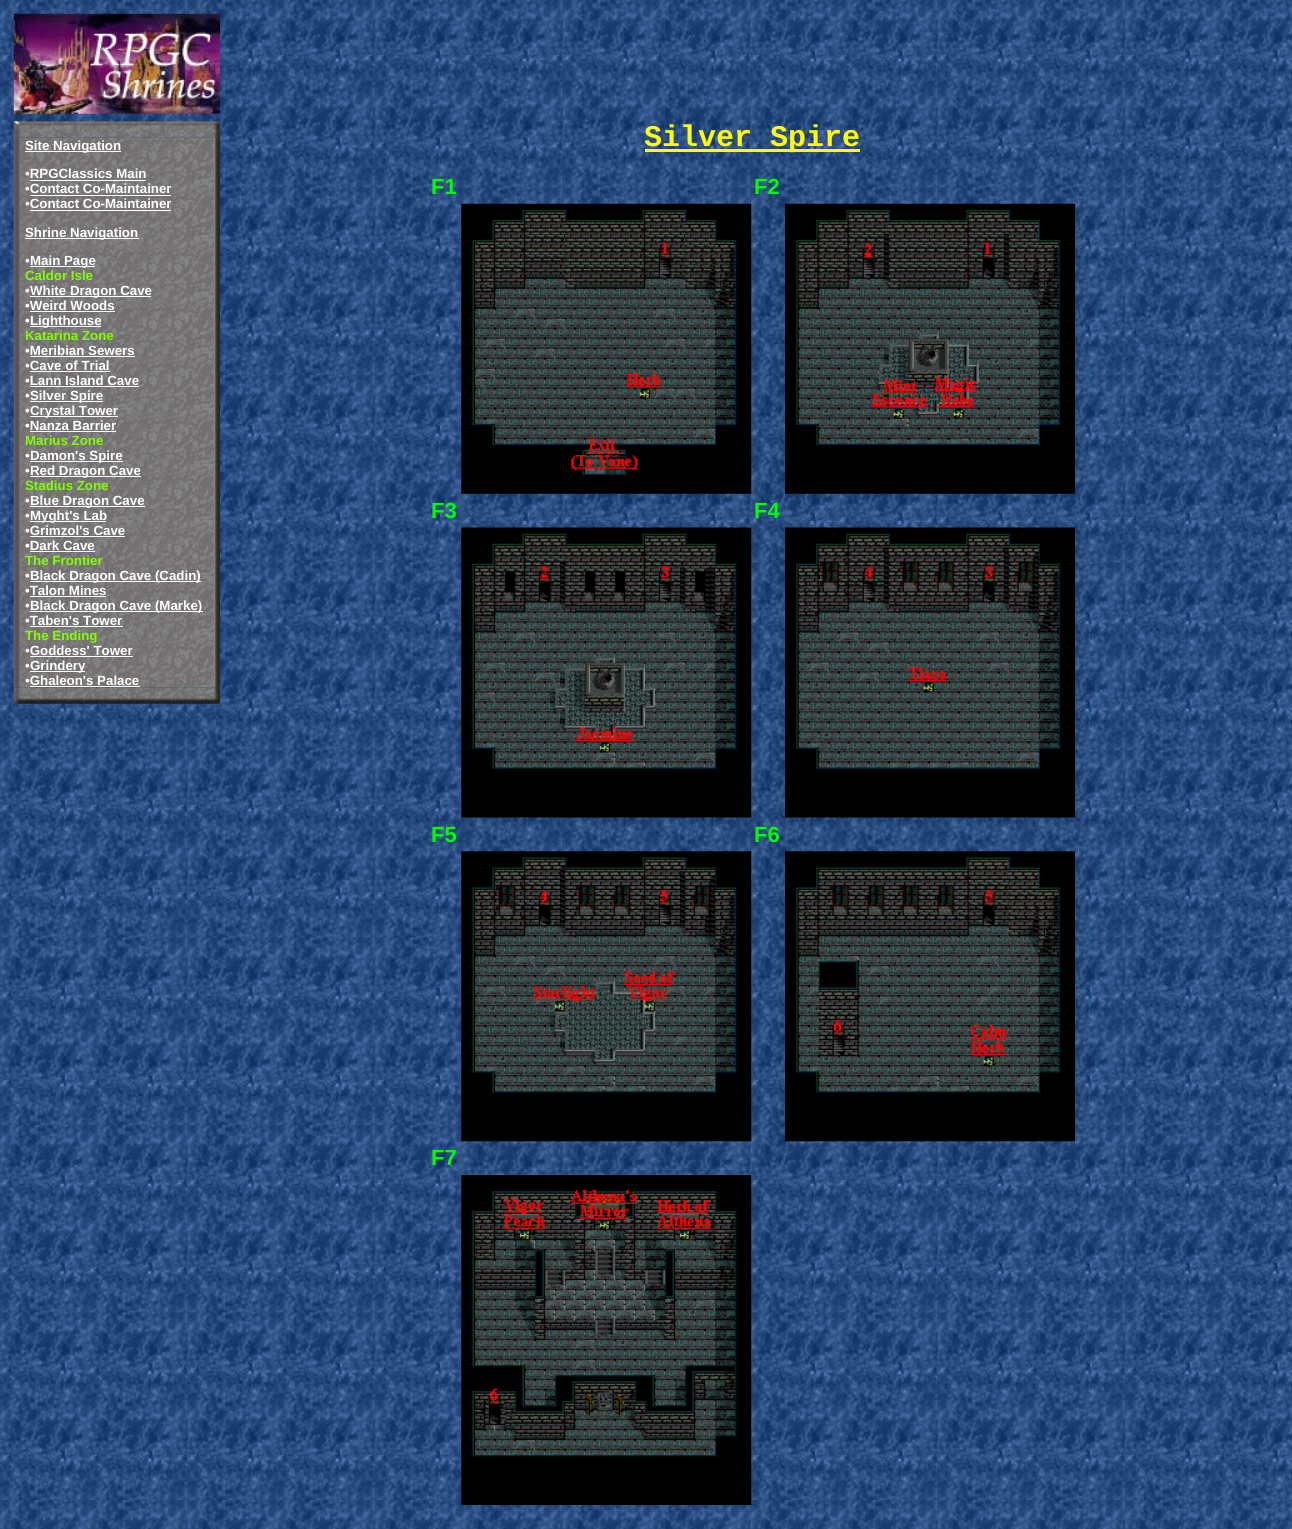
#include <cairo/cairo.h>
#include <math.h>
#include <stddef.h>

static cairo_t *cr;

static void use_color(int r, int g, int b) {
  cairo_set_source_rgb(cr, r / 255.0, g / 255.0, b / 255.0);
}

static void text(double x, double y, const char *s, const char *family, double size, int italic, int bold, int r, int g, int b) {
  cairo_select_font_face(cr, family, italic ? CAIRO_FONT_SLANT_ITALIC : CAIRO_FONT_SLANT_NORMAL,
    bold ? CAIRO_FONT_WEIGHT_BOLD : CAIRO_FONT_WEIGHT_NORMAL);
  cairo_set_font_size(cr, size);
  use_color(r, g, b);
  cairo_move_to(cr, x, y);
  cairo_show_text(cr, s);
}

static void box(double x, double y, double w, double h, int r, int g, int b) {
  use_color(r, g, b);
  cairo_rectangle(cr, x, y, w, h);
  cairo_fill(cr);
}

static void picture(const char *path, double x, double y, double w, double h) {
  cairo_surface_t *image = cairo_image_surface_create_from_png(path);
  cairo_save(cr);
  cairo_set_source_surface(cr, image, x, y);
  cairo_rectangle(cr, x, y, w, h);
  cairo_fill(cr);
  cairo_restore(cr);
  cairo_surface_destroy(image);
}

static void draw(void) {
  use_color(255, 255, 255);
  cairo_paint(cr);
  picture("img_01.png", 0, 0, 1292, 1529);
  picture("img_02.png", 13, 13, 207, 101);
  picture("img_04.png", 13, 137, 207, 551);
  picture("img_03.png", 13, 121, 207, 17);
  box(25, 151, 96, 1, 255, 255, 255);
  box(30, 180, 116, 1, 255, 255, 255);
  box(30, 195, 141, 1, 255, 255, 255);
  box(30, 210, 141, 1, 255, 255, 255);
  box(25, 238, 114, 1, 255, 255, 255);
  box(30, 266, 65, 1, 255, 255, 255);
  box(30, 296, 121, 1, 255, 255, 255);
  box(30, 311, 85, 1, 255, 255, 255);
  box(30, 326, 71, 1, 255, 255, 255);
  box(30, 356, 105, 1, 255, 255, 255);
  box(30, 371, 80, 1, 255, 255, 255);
  box(30, 386, 109, 1, 255, 255, 255);
  box(30, 401, 73, 1, 255, 255, 255);
  box(30, 416, 88, 1, 255, 255, 255);
  box(30, 431, 86, 1, 255, 255, 255);
  box(30, 461, 93, 1, 255, 255, 255);
  box(30, 476, 111, 1, 255, 255, 255);
  box(30, 506, 115, 1, 255, 255, 255);
  box(30, 521, 76, 1, 255, 255, 255);
  box(30, 536, 95, 1, 255, 255, 255);
  box(30, 551, 65, 1, 255, 255, 255);
  box(30, 581, 171, 1, 255, 255, 255);
  box(30, 596, 76, 1, 255, 255, 255);
  box(30, 611, 173, 1, 255, 255, 255);
  box(30, 626, 93, 1, 255, 255, 255);
  box(30, 656, 103, 1, 255, 255, 255);
  box(30, 671, 55, 1, 255, 255, 255);
  box(30, 686, 110, 1, 255, 255, 255);
  picture("img_05.png", 13, 687, 207, 17);
  box(645, 149, 215, 3, 255, 255, 0);
  picture("img_06.png", 461, 203, 291, 291);
  picture("img_07.png", 785, 203, 290, 291);
  picture("img_08.png", 461, 527, 291, 291);
  picture("img_09.png", 785, 527, 290, 291);
  picture("img_10.png", 461, 851, 291, 291);
  picture("img_11.png", 785, 851, 290, 291);
  picture("img_12.png", 461, 1175, 291, 330);
  text(25, 150, "Site Navigation", "Liberation Sans", 13.3, 0, 1, 255, 255, 255);
  text(25, 178, "•RPGClassics Main", "Liberation Sans", 13.3, 0, 1, 255, 255, 255);
  text(25, 193, "•Contact Co-Maintainer", "Liberation Sans", 13.3, 0, 1, 255, 255, 255);
  text(25, 208, "•Contact Co-Maintainer", "Liberation Sans", 13.3, 0, 1, 255, 255, 255);
  text(25, 237, "Shrine Navigation", "Liberation Sans", 13.3, 0, 1, 255, 255, 255);
  text(25, 265, "•", "Liberation Sans", 13.3, 0, 1, 255, 255, 255);
  text(30, 265, "Main Page", "Liberation Sans", 13.3, 0, 1, 255, 255, 255);
  text(25, 280, "Caldor Isle", "Liberation Sans", 13.3, 0, 1, 128, 255, 0);
  text(25, 295, "•", "Liberation Sans", 13.3, 0, 1, 255, 255, 255);
  text(30, 295, "White Dragon Cave", "Liberation Sans", 13.3, 0, 1, 255, 255, 255);
  text(25, 310, "•Weird Woods", "Liberation Sans", 13.3, 0, 1, 255, 255, 255);
  text(25, 325, "•", "Liberation Sans", 13.3, 0, 1, 255, 255, 255);
  text(30, 325, "Lighthouse", "Liberation Sans", 13.3, 0, 1, 255, 255, 255);
  text(25, 340, "Katarina Zone", "Liberation Sans", 13.3, 0, 1, 128, 255, 0);
  text(25, 355, "•Meribian Sewers", "Liberation Sans", 13.3, 0, 1, 255, 255, 255);
  text(25, 370, "•Cave of Trial", "Liberation Sans", 13.3, 0, 1, 255, 255, 255);
  text(25, 385, "•Lann Island Cave", "Liberation Sans", 13.3, 0, 1, 255, 255, 255);
  text(25, 400, "•", "Liberation Sans", 13.3, 0, 1, 255, 255, 255);
  text(30, 400, "Silver Spire", "Liberation Sans", 13.3, 0, 1, 255, 255, 255);
  text(25, 415, "•", "Liberation Sans", 13.3, 0, 1, 255, 255, 255);
  text(30, 415, "Crystal Tower", "Liberation Sans", 13.3, 0, 1, 255, 255, 255);
  text(25, 430, "•Nanza Barrier", "Liberation Sans", 13.3, 0, 1, 255, 255, 255);
  text(25, 445, "Marius Zone", "Liberation Sans", 13.3, 0, 1, 128, 255, 0);
  text(25, 460, "•", "Liberation Sans", 13.3, 0, 1, 255, 255, 255);
  text(30, 460, "Damon's Spire", "Liberation Sans", 13.3, 0, 1, 255, 255, 255);
  text(25, 475, "•", "Liberation Sans", 13.3, 0, 1, 255, 255, 255);
  text(30, 475, "Red Dragon Cave", "Liberation Sans", 13.3, 0, 1, 255, 255, 255);
  text(25, 490, "Stadius Zone", "Liberation Sans", 13.3, 0, 1, 128, 255, 0);
  text(25, 505, "•", "Liberation Sans", 13.3, 0, 1, 255, 255, 255);
  text(30, 505, "Blue Dragon Cave", "Liberation Sans", 13.3, 0, 1, 255, 255, 255);
  text(25, 520, "•", "Liberation Sans", 13.3, 0, 1, 255, 255, 255);
  text(30, 520, "Myght's Lab", "Liberation Sans", 13.3, 0, 1, 255, 255, 255);
  text(25, 535, "•Grimzol's Cave", "Liberation Sans", 13.3, 0, 1, 255, 255, 255);
  text(25, 550, "•Dark Cave", "Liberation Sans", 13.3, 0, 1, 255, 255, 255);
  text(25, 565, "The Frontier", "Liberation Sans", 13.3, 0, 1, 128, 255, 0);
  text(25, 580, "•", "Liberation Sans", 13.3, 0, 1, 255, 255, 255);
  text(30, 580, "Black Dragon Cave (Cadin)", "Liberation Sans", 13.3, 0, 1, 255, 255, 255);
  text(25, 595, "•Talon Mines", "Liberation Sans", 13.3, 0, 1, 255, 255, 255);
  text(25, 610, "•", "Liberation Sans", 13.3, 0, 1, 255, 255, 255);
  text(30, 610, "Black Dragon Cave (Marke)", "Liberation Sans", 13.3, 0, 1, 255, 255, 255);
  text(25, 625, "•Taben's Tower", "Liberation Sans", 13.3, 0, 1, 255, 255, 255);
  text(25, 640, "The Ending", "Liberation Sans", 13.3, 0, 1, 128, 255, 0);
  text(25, 655, "•Goddess' Tower", "Liberation Sans", 13.3, 0, 1, 255, 255, 255);
  text(25, 670, "•", "Liberation Sans", 13.3, 0, 1, 255, 255, 255);
  text(30, 670, "Grindery", "Liberation Sans", 13.3, 0, 1, 255, 255, 255);
  text(25, 685, "•Ghaleon's Palace", "Liberation Sans", 13.3, 0, 1, 255, 255, 255);
  text(644, 146, "Silver Spire", "Liberation Mono", 30, 0, 1, 255, 255, 0);
  text(431, 194, "F1", "Liberation Sans", 22, 0, 1, 0, 255, 0);
  text(754, 194, "F2", "Liberation Sans", 22, 0, 1, 0, 255, 0);
  text(431, 518, "F3", "Liberation Sans", 22, 0, 1, 0, 255, 0);
  text(754, 518, "F4", "Liberation Sans", 22, 0, 1, 0, 255, 0);
  text(431, 842, "F5", "Liberation Sans", 22, 0, 1, 0, 255, 0);
  text(754, 842, "F6", "Liberation Sans", 22, 0, 1, 0, 255, 0);
  text(431, 1165, "F7", "Liberation Sans", 22, 0, 1, 0, 255, 0);
}

int main(void) {
  cairo_surface_t *surface = cairo_image_surface_create(CAIRO_FORMAT_RGB24, 1292, 1529);
  cr = cairo_create(surface);
  cairo_font_options_t *options = cairo_font_options_create();
  cairo_font_options_set_hint_metrics(options, CAIRO_HINT_METRICS_OFF);
  cairo_font_options_set_hint_style(options, CAIRO_HINT_STYLE_NONE);
  cairo_set_font_options(cr, options);
  cairo_set_miter_limit(cr, 4);
  draw();
  cairo_surface_write_to_png(surface, "out.png");
  cairo_font_options_destroy(options);
  cairo_destroy(cr);
  cairo_surface_destroy(surface);
  return 0;
}
